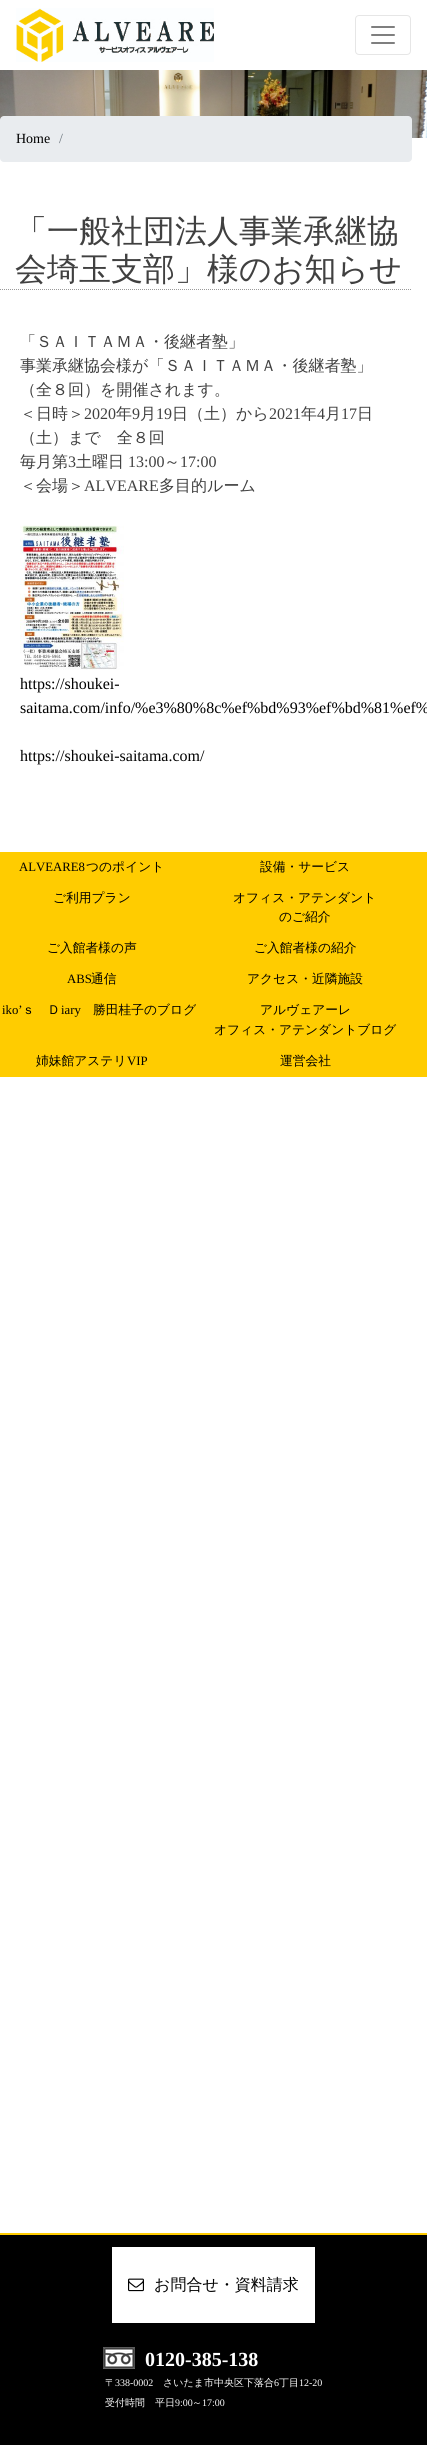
#include <cairo/cairo.h>
#include <math.h>
#include <stddef.h>

static cairo_t *cr;

static void use_color(int r, int g, int b) {
  cairo_set_source_rgb(cr, r / 255.0, g / 255.0, b / 255.0);
}

static void text(double x, double y, const char *s, const char *family, double size, int italic, int bold, int r, int g, int b) {
  cairo_select_font_face(cr, family, italic ? CAIRO_FONT_SLANT_ITALIC : CAIRO_FONT_SLANT_NORMAL,
    bold ? CAIRO_FONT_WEIGHT_BOLD : CAIRO_FONT_WEIGHT_NORMAL);
  cairo_set_font_size(cr, size);
  use_color(r, g, b);
  cairo_move_to(cr, x, y);
  cairo_show_text(cr, s);
}

static void box(double x, double y, double w, double h, int r, int g, int b) {
  use_color(r, g, b);
  cairo_rectangle(cr, x, y, w, h);
  cairo_fill(cr);
}

static void round_rect(double x, double y, double w, double h, double r) {
  cairo_new_sub_path(cr);
  cairo_arc(cr, x + w - r, y + h - r, r, 0, M_PI / 2);
  cairo_arc(cr, x + r, y + h - r, r, M_PI / 2, M_PI);
  cairo_arc(cr, x + r, y + r, r, M_PI, 1.5 * M_PI);
  cairo_arc(cr, x + w - r, y + r, r, 1.5 * M_PI, 2 * M_PI);
  cairo_close_path(cr);
}

static void picture(const char *path, double x, double y, double w, double h) {
  cairo_surface_t *image = cairo_image_surface_create_from_png(path);
  cairo_save(cr);
  cairo_set_source_surface(cr, image, x, y);
  cairo_rectangle(cr, x, y, w, h);
  cairo_fill(cr);
  cairo_restore(cr);
  cairo_surface_destroy(image);
}

static void draw(void) {
  use_color(255, 255, 255);
  cairo_paint(cr);
  picture("img_01.png", 16, 8, 198, 54);
  round_rect(355.5, 15.5, 55, 39, 3.5);
  use_color(230, 230, 230);
  cairo_set_line_width(cr, 1);
  cairo_stroke(cr);
  picture("img_02.png", 371, 26, 24, 18);
  picture("img_03.png", 0, 70, 427, 68);
  use_color(233, 236, 239);
  round_rect(0, 116, 412, 46, 4);
  cairo_fill(cr);
  cairo_new_path(cr);
  cairo_move_to(cr, 0, 289.5);
  cairo_line_to(cr, 412, 289.5);
  use_color(153, 153, 153);
  cairo_set_dash(cr, (double[]){1, 1}, 2, 0);
  cairo_stroke(cr);
  picture("img_04.png", 20, 525, 104, 145);
  box(0, 852, 427, 225, 255, 204, 0);
  box(0, 2235, 427, 210, 0, 0, 0);
  box(0, 2233, 427, 2, 255, 204, 0);
  box(112, 2247, 203, 76, 255, 255, 255);
  picture("img_05.png", 128, 2278, 16, 14);
  picture("img_06.png", 103, 2347, 32, 22);
  text(16, 143, "Home", "Liberation Serif", 14, 0, 0, 0, 0, 0);
  text(59, 143, "/", "Liberation Serif", 14, 0, 0, 108, 117, 125);
  text(15, 242, "「一般社団法人事業承継協", "WenQuanYi Zen Hei Medium", 32, 0, 0, 64, 64, 64);
  text(15, 280, "会埼玉支部」様のお知らせ", "WenQuanYi Zen Hei Medium", 32, 0, 0, 64, 64, 64);
  text(20, 347, "「ＳＡＩＴＡＭＡ・後継者塾」", "WenQuanYi Zen Hei Medium", 16, 0, 0, 64, 64, 64);
  text(20, 371, "事業承継協会様が「ＳＡＩＴＡＭＡ・後継者塾」", "WenQuanYi Zen Hei Medium", 16, 0, 0, 64, 64, 64);
  text(20, 395, "（全８回）を開催されます。", "WenQuanYi Zen Hei Medium", 16, 0, 0, 64, 64, 64);
  text(20, 419, "＜日時＞", "WenQuanYi Zen Hei Medium", 16, 0, 0, 64, 64, 64);
  text(84, 419, "2020", "Liberation Serif", 16, 0, 0, 64, 64, 64);
  text(116, 419, "年", "WenQuanYi Zen Hei Medium", 16, 0, 0, 64, 64, 64);
  text(132, 419, "9", "Liberation Serif", 16, 0, 0, 64, 64, 64);
  text(140, 419, "月", "WenQuanYi Zen Hei Medium", 16, 0, 0, 64, 64, 64);
  text(156, 419, "19", "Liberation Serif", 16, 0, 0, 64, 64, 64);
  text(172, 419, "日（土）から", "WenQuanYi Zen Hei Medium", 16, 0, 0, 64, 64, 64);
  text(269, 419, "2021", "Liberation Serif", 16, 0, 0, 64, 64, 64);
  text(301, 419, "年", "WenQuanYi Zen Hei Medium", 16, 0, 0, 64, 64, 64);
  text(317, 419, "4", "Liberation Serif", 16, 0, 0, 64, 64, 64);
  text(325, 419, "月", "WenQuanYi Zen Hei Medium", 16, 0, 0, 64, 64, 64);
  text(341, 419, "17", "Liberation Serif", 16, 0, 0, 64, 64, 64);
  text(357, 419, "日", "WenQuanYi Zen Hei Medium", 16, 0, 0, 64, 64, 64);
  text(20, 443, "（土）まで　全８回", "WenQuanYi Zen Hei Medium", 16, 0, 0, 64, 64, 64);
  text(20, 467, "毎月第", "WenQuanYi Zen Hei Medium", 16, 0, 0, 64, 64, 64);
  text(68, 467, "3", "Liberation Serif", 16, 0, 0, 64, 64, 64);
  text(76, 467, "土曜日", "WenQuanYi Zen Hei Medium", 16, 0, 0, 64, 64, 64);
  text(128, 467, "13:00", "Liberation Serif", 16, 0, 0, 64, 64, 64);
  text(164, 467, "～", "WenQuanYi Zen Hei Medium", 16, 0, 0, 64, 64, 64);
  text(180, 467, "17:00", "Liberation Serif", 16, 0, 0, 64, 64, 64);
  text(20, 491, "＜会場＞", "WenQuanYi Zen Hei Medium", 16, 0, 0, 64, 64, 64);
  text(84, 491, "ALVEARE", "Liberation Serif", 16, 0, 0, 64, 64, 64);
  text(159, 491, "多目的ルーム", "WenQuanYi Zen Hei Medium", 16, 0, 0, 64, 64, 64);
  text(20, 689, "https://shoukei-", "Liberation Serif", 16, 0, 0, 0, 0, 0);
  text(20, 713, "saitama.com/info/%e3%80%8c%ef%bd%93%ef%bd%81%ef%", "Liberation Serif", 16, 0, 0, 0, 0, 0);
  text(20, 761, "https://shoukei-saitama.com/", "Liberation Serif", 16, 0, 0, 0, 0, 0);
  text(19, 871, "ALVEARE8", "Liberation Serif", 12.75, 0, 0, 0, 0, 0);
  text(86, 871, "つのポイント", "WenQuanYi Zen Hei Medium", 12.75, 0, 0, 0, 0, 0);
  text(260, 871, "設備・サービス", "WenQuanYi Zen Hei Medium", 12.75, 0, 0, 0, 0, 0);
  text(53, 902, "ご利用プラン", "WenQuanYi Zen Hei Medium", 12.75, 0, 0, 0, 0, 0);
  text(233, 902, "オフィス・アテンダント", "WenQuanYi Zen Hei Medium", 12.75, 0, 0, 0, 0, 0);
  text(279, 921, "のご紹介", "WenQuanYi Zen Hei Medium", 12.75, 0, 0, 0, 0, 0);
  text(47, 952, "ご入館者様の声", "WenQuanYi Zen Hei Medium", 12.75, 0, 0, 0, 0, 0);
  text(254, 952, "ご入館者様の紹介", "WenQuanYi Zen Hei Medium", 12.75, 0, 0, 0, 0, 0);
  text(67, 983, "ABS", "Liberation Serif", 12.75, 0, 0, 0, 0, 0);
  text(91, 983, "通信", "WenQuanYi Zen Hei Medium", 12.75, 0, 0, 0, 0, 0);
  text(247, 983, "アクセス・近隣施設", "WenQuanYi Zen Hei Medium", 12.75, 0, 0, 0, 0, 0);
  text(2, 1014, "iko’", "Liberation Serif", 12.75, 0, 0, 0, 0, 0);
  text(22, 1014, "ｓ　Ｄ", "WenQuanYi Zen Hei Medium", 12.75, 0, 0, 0, 0, 0);
  text(61, 1014, "iary", "Liberation Serif", 12.75, 0, 0, 0, 0, 0);
  text(93, 1014, "勝田桂子のブログ", "WenQuanYi Zen Hei Medium", 12.75, 0, 0, 0, 0, 0);
  text(260, 1014, "アルヴェアーレ", "WenQuanYi Zen Hei Medium", 12.75, 0, 0, 0, 0, 0);
  text(214, 1034, "オフィス・アテンダントブログ", "WenQuanYi Zen Hei Medium", 12.75, 0, 0, 0, 0, 0);
  text(36, 1065, "姉妹館アステリ", "WenQuanYi Zen Hei Medium", 12.75, 0, 0, 0, 0, 0);
  text(127, 1065, "VIP", "Liberation Serif", 12.75, 0, 0, 0, 0, 0);
  text(280, 1065, "運営会社", "WenQuanYi Zen Hei Medium", 12.75, 0, 0, 0, 0, 0);
  text(154, 2290, "お問合せ・資料請求", "WenQuanYi Zen Hei Medium", 16, 0, 0, 0, 0, 0);
  text(145, 2366, "0120-385-138", "Liberation Serif", 20, 0, 1, 255, 255, 255);
  text(105, 2386, "〒", "WenQuanYi Zen Hei Medium", 10, 0, 0, 255, 255, 255);
  text(115, 2386, "338-0002", "Liberation Serif", 10, 0, 0, 255, 255, 255);
  text(163, 2386, "さいたま市中央区下落合", "WenQuanYi Zen Hei Medium", 10, 0, 0, 255, 255, 255);
  text(274, 2386, "6", "Liberation Serif", 10, 0, 0, 255, 255, 255);
  text(279, 2386, "丁目", "WenQuanYi Zen Hei Medium", 10, 0, 0, 255, 255, 255);
  text(299, 2386, "12-20", "Liberation Serif", 10, 0, 0, 255, 255, 255);
  text(105, 2406, "受付時間　平日", "WenQuanYi Zen Hei Medium", 10, 0, 0, 255, 255, 255);
  text(175, 2406, "9:00", "Liberation Serif", 10, 0, 0, 255, 255, 255);
  text(192, 2406, "～", "WenQuanYi Zen Hei Medium", 10, 0, 0, 255, 255, 255);
  text(202, 2406, "17:00", "Liberation Serif", 10, 0, 0, 255, 255, 255);
}

int main(void) {
  cairo_surface_t *surface = cairo_image_surface_create(CAIRO_FORMAT_RGB24, 427, 2445);
  cr = cairo_create(surface);
  cairo_font_options_t *options = cairo_font_options_create();
  cairo_font_options_set_hint_metrics(options, CAIRO_HINT_METRICS_OFF);
  cairo_font_options_set_hint_style(options, CAIRO_HINT_STYLE_NONE);
  cairo_set_font_options(cr, options);
  cairo_set_miter_limit(cr, 4);
  draw();
  cairo_surface_write_to_png(surface, "out.png");
  cairo_font_options_destroy(options);
  cairo_destroy(cr);
  cairo_surface_destroy(surface);
  return 0;
}
